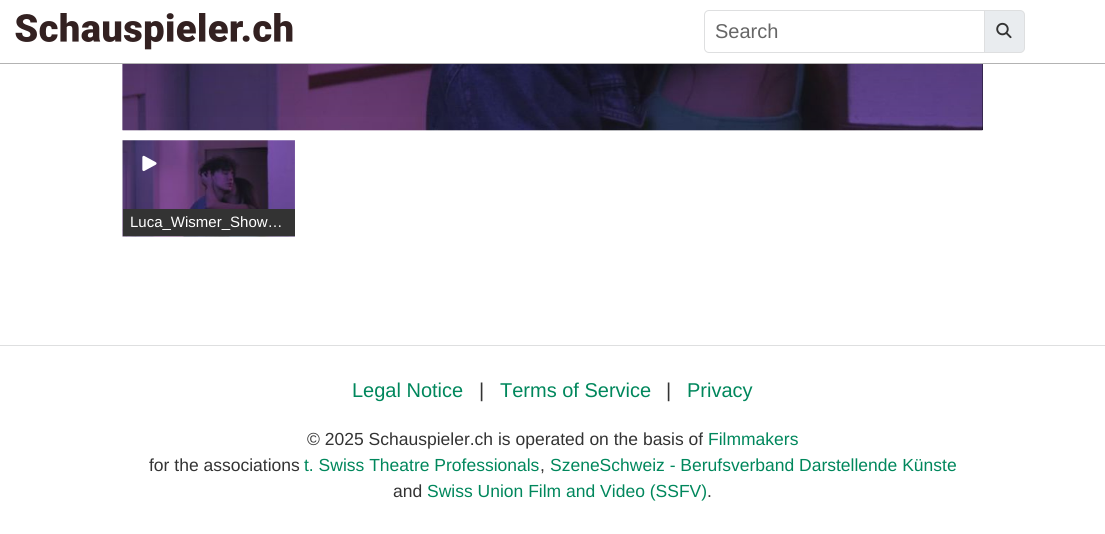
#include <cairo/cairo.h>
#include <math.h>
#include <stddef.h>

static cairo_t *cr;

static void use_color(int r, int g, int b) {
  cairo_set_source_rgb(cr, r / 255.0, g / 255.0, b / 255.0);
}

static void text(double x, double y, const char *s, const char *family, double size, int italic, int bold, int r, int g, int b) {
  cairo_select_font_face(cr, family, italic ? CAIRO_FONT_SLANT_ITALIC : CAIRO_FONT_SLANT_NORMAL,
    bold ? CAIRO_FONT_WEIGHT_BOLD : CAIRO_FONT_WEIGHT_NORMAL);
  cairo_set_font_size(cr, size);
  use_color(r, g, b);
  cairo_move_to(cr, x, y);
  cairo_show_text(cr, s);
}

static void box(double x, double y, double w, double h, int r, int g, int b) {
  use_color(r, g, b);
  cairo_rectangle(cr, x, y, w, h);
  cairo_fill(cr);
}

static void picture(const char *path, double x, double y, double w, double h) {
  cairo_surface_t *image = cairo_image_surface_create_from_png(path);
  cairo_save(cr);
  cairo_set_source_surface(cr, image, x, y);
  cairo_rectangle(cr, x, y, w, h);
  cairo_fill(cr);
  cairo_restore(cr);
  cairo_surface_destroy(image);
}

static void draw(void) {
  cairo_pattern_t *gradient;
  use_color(255, 255, 255);
  cairo_paint(cr);
  box(0, 63, 1105, 1, 179, 179, 179);
  picture("img_01.png", 15, 13, 278, 37);
  cairo_new_path(cr);
  cairo_move_to(cr, 709, 10.5);
  cairo_line_to(cr, 984.5, 10.5);
  cairo_line_to(cr, 984.5, 52.5);
  cairo_line_to(cr, 709, 52.5);
  cairo_curve_to(cr, 706.5, 52.5, 704.5, 50.5, 704.5, 48);
  cairo_line_to(cr, 704.5, 15);
  cairo_curve_to(cr, 704.5, 12.5, 706.5, 10.5, 709, 10.5);
  cairo_close_path(cr);
  use_color(222, 223, 224);
  cairo_set_line_width(cr, 1);
  cairo_stroke(cr);
  use_color(233, 236, 239);
  cairo_new_path(cr);
  cairo_move_to(cr, 984.5, 10.5);
  cairo_line_to(cr, 1020, 10.5);
  cairo_curve_to(cr, 1022.5, 10.5, 1024.5, 12.5, 1024.5, 15);
  cairo_line_to(cr, 1024.5, 48);
  cairo_curve_to(cr, 1024.5, 50.5, 1022.5, 52.5, 1020, 52.5);
  cairo_line_to(cr, 984.5, 52.5);
  cairo_close_path(cr);
  cairo_fill_preserve(cr);
  use_color(222, 223, 224);
  cairo_stroke(cr);
  picture("img_02.png", 996, 22, 16, 17);
  box(982, 64, 1, 66, 0, 0, 0);
  picture("img_03.png", 122, 64, 861, 67);
  picture("img_04.png", 122, 64, 861, 67);
  gradient = cairo_pattern_create_linear(553, -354, 553, 130);
  cairo_pattern_add_color_stop_rgba(gradient, 0, 0, 0, 0, 0.8);
  cairo_pattern_add_color_stop_rgba(gradient, 1, 0, 0, 0, 0);
  cairo_set_source(cr, gradient);
  cairo_pattern_destroy(gradient);
  cairo_rectangle(cr, 123, 64, 860, 53);
  cairo_fill(cr);
  picture("img_05.png", 122, 140, 173, 97);
  picture("img_06.png", 142, 155, 15, 17);
  box(123, 209, 172, 27, 51, 51, 51);
  box(0, 345, 1105, 1, 222, 223, 224);
  text(715, 38, "Search", "Liberation Sans", 20, 0, 0, 102, 102, 102);
  text(130, 227, "Luca_Wismer_Show…", "Liberation Sans", 15, 0, 0, 255, 255, 255);
  text(352, 397, "Legal Notice", "Liberation Sans", 20, 0, 0, 0, 135, 92);
  text(479, 397, "|", "Liberation Sans", 20, 0, 0, 51, 51, 51);
  text(500, 397, "Terms of Service", "Liberation Sans", 20, 0, 0, 0, 135, 92);
  text(666, 397, "|", "Liberation Sans", 20, 0, 0, 51, 51, 51);
  text(687, 397, "Privacy", "Liberation Sans", 20, 0, 0, 0, 135, 92);
  text(307, 445, "© 2025 Schauspieler.ch is operated on the basis of", "Liberation Sans", 17.5, 0, 0, 51, 51, 51);
  text(708, 445, "Filmmakers", "Liberation Sans", 17.5, 0, 0, 0, 135, 92);
  text(149, 471, "for the associations", "Liberation Sans", 17.5, 0, 0, 51, 51, 51);
  text(304, 471, "t. Swiss Theatre Professionals", "Liberation Sans", 17.5, 0, 0, 0, 135, 92);
  text(540, 471, ",", "Liberation Sans", 17.5, 0, 0, 51, 51, 51);
  text(550, 471, "SzeneSchweiz - Berufsverband Darstellende Künste", "Liberation Sans", 17.5, 0, 0, 0, 135, 92);
  text(393, 497, "and", "Liberation Sans", 17.5, 0, 0, 51, 51, 51);
  text(427, 497, "Swiss Union Film and Video (SSFV)", "Liberation Sans", 17.5, 0, 0, 0, 135, 92);
  text(707, 497, ".", "Liberation Sans", 17.5, 0, 0, 51, 51, 51);
}

int main(void) {
  cairo_surface_t *surface = cairo_image_surface_create(CAIRO_FORMAT_RGB24, 1105, 534);
  cr = cairo_create(surface);
  cairo_font_options_t *options = cairo_font_options_create();
  cairo_font_options_set_hint_metrics(options, CAIRO_HINT_METRICS_OFF);
  cairo_font_options_set_hint_style(options, CAIRO_HINT_STYLE_NONE);
  cairo_set_font_options(cr, options);
  cairo_set_miter_limit(cr, 4);
  draw();
  cairo_surface_write_to_png(surface, "out.png");
  cairo_font_options_destroy(options);
  cairo_destroy(cr);
  cairo_surface_destroy(surface);
  return 0;
}
